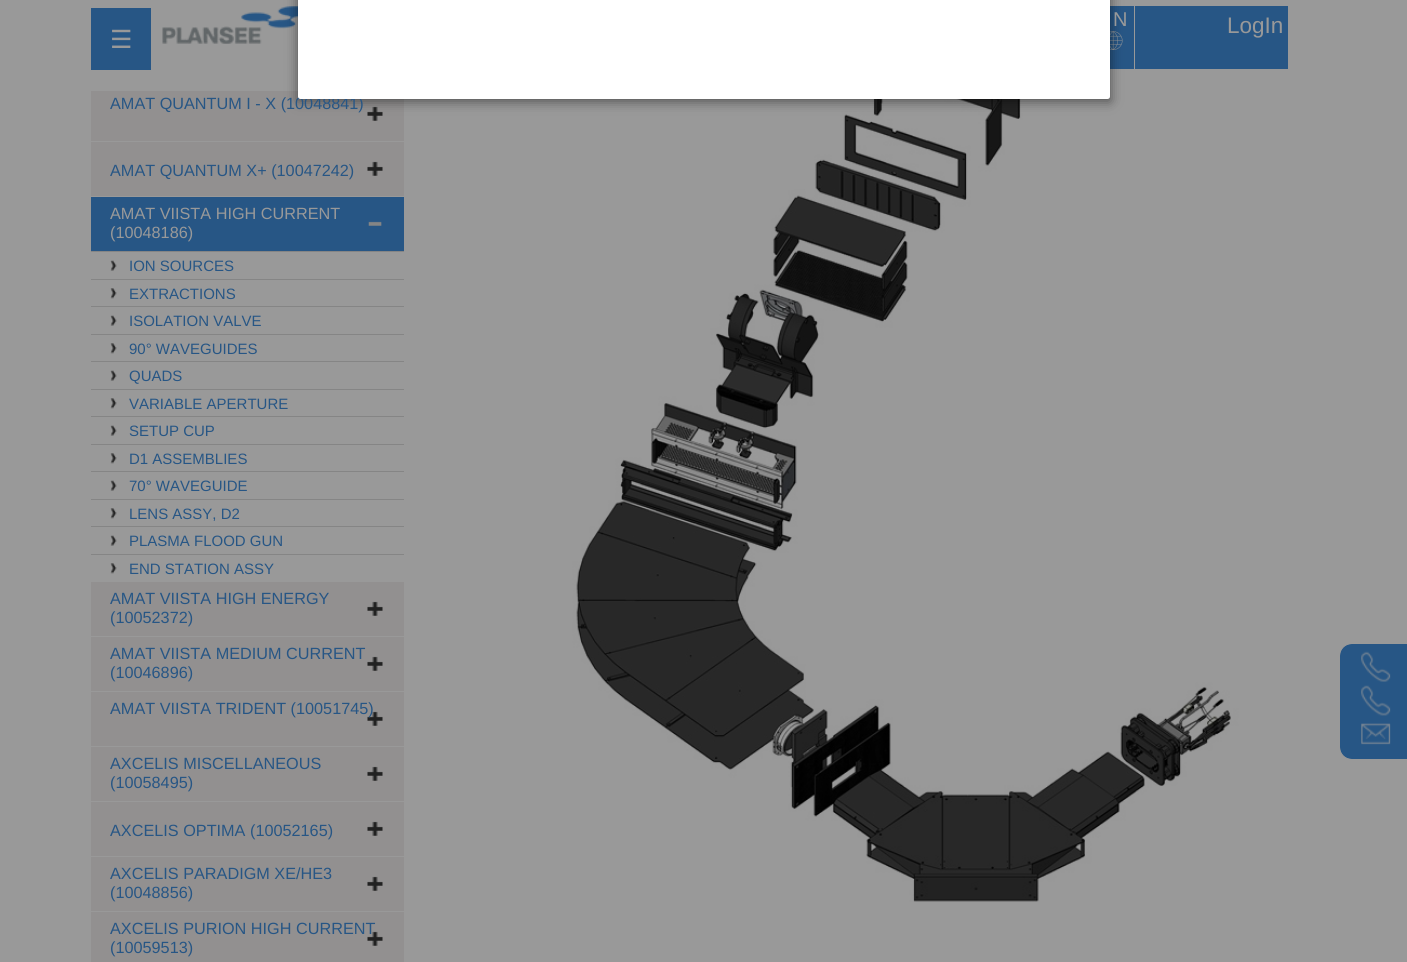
#include <cairo/cairo.h>
#include <math.h>
#include <stddef.h>

static cairo_t *cr;

static void use_color(int r, int g, int b) {
  cairo_set_source_rgb(cr, r / 255.0, g / 255.0, b / 255.0);
}

static void text(double x, double y, const char *s, const char *family, double size, int italic, int bold, int r, int g, int b) {
  cairo_select_font_face(cr, family, italic ? CAIRO_FONT_SLANT_ITALIC : CAIRO_FONT_SLANT_NORMAL,
    bold ? CAIRO_FONT_WEIGHT_BOLD : CAIRO_FONT_WEIGHT_NORMAL);
  cairo_set_font_size(cr, size);
  use_color(r, g, b);
  cairo_move_to(cr, x, y);
  cairo_show_text(cr, s);
}

static void box(double x, double y, double w, double h, int r, int g, int b) {
  use_color(r, g, b);
  cairo_rectangle(cr, x, y, w, h);
  cairo_fill(cr);
}

static void round_rect(double x, double y, double w, double h, double r) {
  cairo_new_sub_path(cr);
  cairo_arc(cr, x + w - r, y + h - r, r, 0, M_PI / 2);
  cairo_arc(cr, x + r, y + h - r, r, M_PI / 2, M_PI);
  cairo_arc(cr, x + r, y + r, r, M_PI, 1.5 * M_PI);
  cairo_arc(cr, x + w - r, y + r, r, 1.5 * M_PI, 2 * M_PI);
  cairo_close_path(cr);
}

static void shadow(double x, double y, double w, double h, double r, double blur, double alpha) {
  cairo_push_group_with_content(cr, CAIRO_CONTENT_ALPHA);
  cairo_set_operator(cr, CAIRO_OPERATOR_SOURCE);
  for (int i = 15; i >= -15 && fmin(w, h) + blur * i / 3 > 0; i -= 2) {
    double e = blur * i / 6;
    cairo_set_source_rgba(cr, 0, 0, 0, alpha * erfc((i - 1) / 8.5) / 2);
    round_rect(x - e, y - e, w + 2 * e, h + 2 * e, fmax(0, fmin(r + e + blur * .6, fmin(w, h) / 2 + e)));
    cairo_fill(cr);
  }
  cairo_pattern_t *soft = cairo_pop_group(cr);
  cairo_mask(cr, soft);
  cairo_pattern_destroy(soft);
}

static void picture(const char *path, double x, double y, double w, double h) {
  cairo_surface_t *image = cairo_image_surface_create_from_png(path);
  cairo_save(cr);
  cairo_set_source_surface(cr, image, x, y);
  cairo_rectangle(cr, x, y, w, h);
  cairo_fill(cr);
  cairo_restore(cr);
  cairo_surface_destroy(image);
}

static void draw(void) {
  use_color(153, 153, 153);
  cairo_paint(cr);
  picture("img_01.png", 162, 6, 136, 38);
  box(1110, 6, 24, 63, 39, 86, 133);
  picture("img_02.png", 1110, 31, 13, 19);
  box(91, 91, 313, 50, 146, 144, 144);
  picture("img_03.png", 367, 106, 16, 15);
  picture("img_07.png", 451, 69, 865, 833);
  use_color(0, 0, 0);
  shadow(298, -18, 812, 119, 0, 6, 0.5);
  box(91, 8, 60, 62, 39, 86, 133);
  box(1135, 6, 153, 63, 39, 86, 133);
  box(91, 142, 313, 54, 146, 144, 144);
  picture("img_03.png", 367, 161, 16, 15);
  box(91, 197, 313, 54, 39, 86, 133);
  picture("img_04.png", 368, 221, 14, 5);
  box(91, 251, 313, 1, 133, 133, 133);
  picture("img_05.png", 110, 260, 7, 11);
  box(91, 279, 313, 1, 133, 133, 133);
  picture("img_06.png", 110, 288, 7, 11);
  box(91, 306, 313, 1, 133, 133, 133);
  picture("img_05.png", 110, 315, 7, 11);
  box(91, 334, 313, 1, 133, 133, 133);
  picture("img_06.png", 110, 343, 7, 11);
  box(91, 361, 313, 1, 133, 133, 133);
  picture("img_05.png", 110, 370, 7, 11);
  box(91, 389, 313, 1, 133, 133, 133);
  picture("img_06.png", 110, 398, 7, 11);
  box(91, 416, 313, 1, 133, 133, 133);
  picture("img_05.png", 110, 425, 7, 11);
  box(91, 444, 313, 1, 133, 133, 133);
  picture("img_06.png", 110, 453, 7, 11);
  box(91, 471, 313, 1, 133, 133, 133);
  picture("img_05.png", 110, 480, 7, 11);
  box(91, 499, 313, 1, 133, 133, 133);
  picture("img_06.png", 110, 508, 7, 11);
  box(91, 526, 313, 1, 133, 133, 133);
  picture("img_05.png", 110, 535, 7, 11);
  box(91, 554, 313, 1, 133, 133, 133);
  picture("img_06.png", 110, 563, 7, 11);
  box(91, 582, 313, 54, 146, 144, 144);
  picture("img_03.png", 367, 601, 16, 15);
  box(91, 637, 313, 54, 146, 144, 144);
  picture("img_03.png", 367, 656, 16, 15);
  box(91, 692, 313, 54, 146, 144, 144);
  picture("img_03.png", 367, 711, 16, 15);
  box(91, 747, 313, 54, 146, 144, 144);
  picture("img_03.png", 367, 766, 16, 15);
  box(91, 802, 313, 54, 146, 144, 144);
  picture("img_03.png", 367, 821, 16, 15);
  box(91, 857, 313, 54, 146, 144, 144);
  picture("img_03.png", 367, 876, 16, 15);
  box(91, 912, 313, 50, 146, 144, 144);
  picture("img_03.png", 367, 931, 16, 15);
  use_color(39, 86, 133);
  round_rect(1340, 644, 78, 115, 11);
  cairo_fill(cr);
  round_rect(1339.5, 643.5, 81, 116, 12.5);
  use_color(153, 153, 153);
  cairo_set_line_width(cr, 1);
  cairo_stroke(cr);
  picture("img_08.png", 1361, 651, 30, 31);
  picture("img_09.png", 1361, 685, 30, 31);
  picture("img_10.png", 1361, 723, 30, 22);
  text(110, 48, "☰", "DejaVu Sans", 25, 0, 0, 153, 153, 153);
  text(1113, 26, "N", "Liberation Sans", 20, 0, 0, 153, 153, 153);
  text(1227, 33, "LogIn", "Liberation Sans", 22.5, 0, 0, 153, 153, 153);
  text(110, 109, "AMAT QUANTUM I - X (10048841)", "Liberation Sans", 16.25, 0, 0, 39, 86, 133);
  use_color(255, 255, 255);
  round_rect(298, -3, 812, 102, 2.5);
  cairo_fill(cr);
  text(110, 176, "AMAT QUANTUM X+ (10047242)", "Liberation Sans", 16.25, 0, 0, 39, 86, 133);
  text(110, 219, "AMAT VIISTA HIGH CURRENT", "Liberation Sans", 16.25, 0, 0, 153, 153, 153);
  text(110, 238, "(10048186)", "Liberation Sans", 16.25, 0, 0, 153, 153, 153);
  text(129, 271, "ION SOURCES", "Liberation Sans", 15, 0, 0, 39, 86, 133);
  text(129, 299, "EXTRACTIONS", "Liberation Sans", 15, 0, 0, 39, 86, 133);
  text(129, 326, "ISOLATION VALVE", "Liberation Sans", 15, 0, 0, 39, 86, 133);
  text(129, 354, "90° WAVEGUIDES", "Liberation Sans", 15, 0, 0, 39, 86, 133);
  text(129, 381, "QUADS", "Liberation Sans", 15, 0, 0, 39, 86, 133);
  text(129, 409, "VARIABLE APERTURE", "Liberation Sans", 15, 0, 0, 39, 86, 133);
  text(129, 436, "SETUP CUP", "Liberation Sans", 15, 0, 0, 39, 86, 133);
  text(129, 464, "D1 ASSEMBLIES", "Liberation Sans", 15, 0, 0, 39, 86, 133);
  text(129, 491, "70° WAVEGUIDE", "Liberation Sans", 15, 0, 0, 39, 86, 133);
  text(129, 519, "LENS ASSY, D2", "Liberation Sans", 15, 0, 0, 39, 86, 133);
  text(129, 546, "PLASMA FLOOD GUN", "Liberation Sans", 15, 0, 0, 39, 86, 133);
  text(129, 574, "END STATION ASSY", "Liberation Sans", 15, 0, 0, 39, 86, 133);
  text(110, 604, "AMAT VIISTA HIGH ENERGY", "Liberation Sans", 16.25, 0, 0, 39, 86, 133);
  text(110, 623, "(10052372)", "Liberation Sans", 16.25, 0, 0, 39, 86, 133);
  text(110, 659, "AMAT VIISTA MEDIUM CURRENT", "Liberation Sans", 16.25, 0, 0, 39, 86, 133);
  text(110, 678, "(10046896)", "Liberation Sans", 16.25, 0, 0, 39, 86, 133);
  text(110, 714, "AMAT VIISTA TRIDENT (10051745)", "Liberation Sans", 16.25, 0, 0, 39, 86, 133);
  text(110, 769, "AXCELIS MISCELLANEOUS", "Liberation Sans", 16.25, 0, 0, 39, 86, 133);
  text(110, 788, "(10058495)", "Liberation Sans", 16.25, 0, 0, 39, 86, 133);
  text(110, 836, "AXCELIS OPTIMA (10052165)", "Liberation Sans", 16.25, 0, 0, 39, 86, 133);
  text(110, 879, "AXCELIS PARADIGM XE/HE3", "Liberation Sans", 16.25, 0, 0, 39, 86, 133);
  text(110, 898, "(10048856)", "Liberation Sans", 16.25, 0, 0, 39, 86, 133);
  text(110, 934, "AXCELIS PURION HIGH CURRENT", "Liberation Sans", 16.25, 0, 0, 39, 86, 133);
  text(110, 953, "(10059513)", "Liberation Sans", 16.25, 0, 0, 39, 86, 133);
}

int main(void) {
  cairo_surface_t *surface = cairo_image_surface_create(CAIRO_FORMAT_RGB24, 1407, 962);
  cr = cairo_create(surface);
  cairo_font_options_t *options = cairo_font_options_create();
  cairo_font_options_set_hint_metrics(options, CAIRO_HINT_METRICS_OFF);
  cairo_font_options_set_hint_style(options, CAIRO_HINT_STYLE_NONE);
  cairo_set_font_options(cr, options);
  cairo_set_miter_limit(cr, 4);
  draw();
  cairo_surface_write_to_png(surface, "out.png");
  cairo_font_options_destroy(options);
  cairo_destroy(cr);
  cairo_surface_destroy(surface);
  return 0;
}
